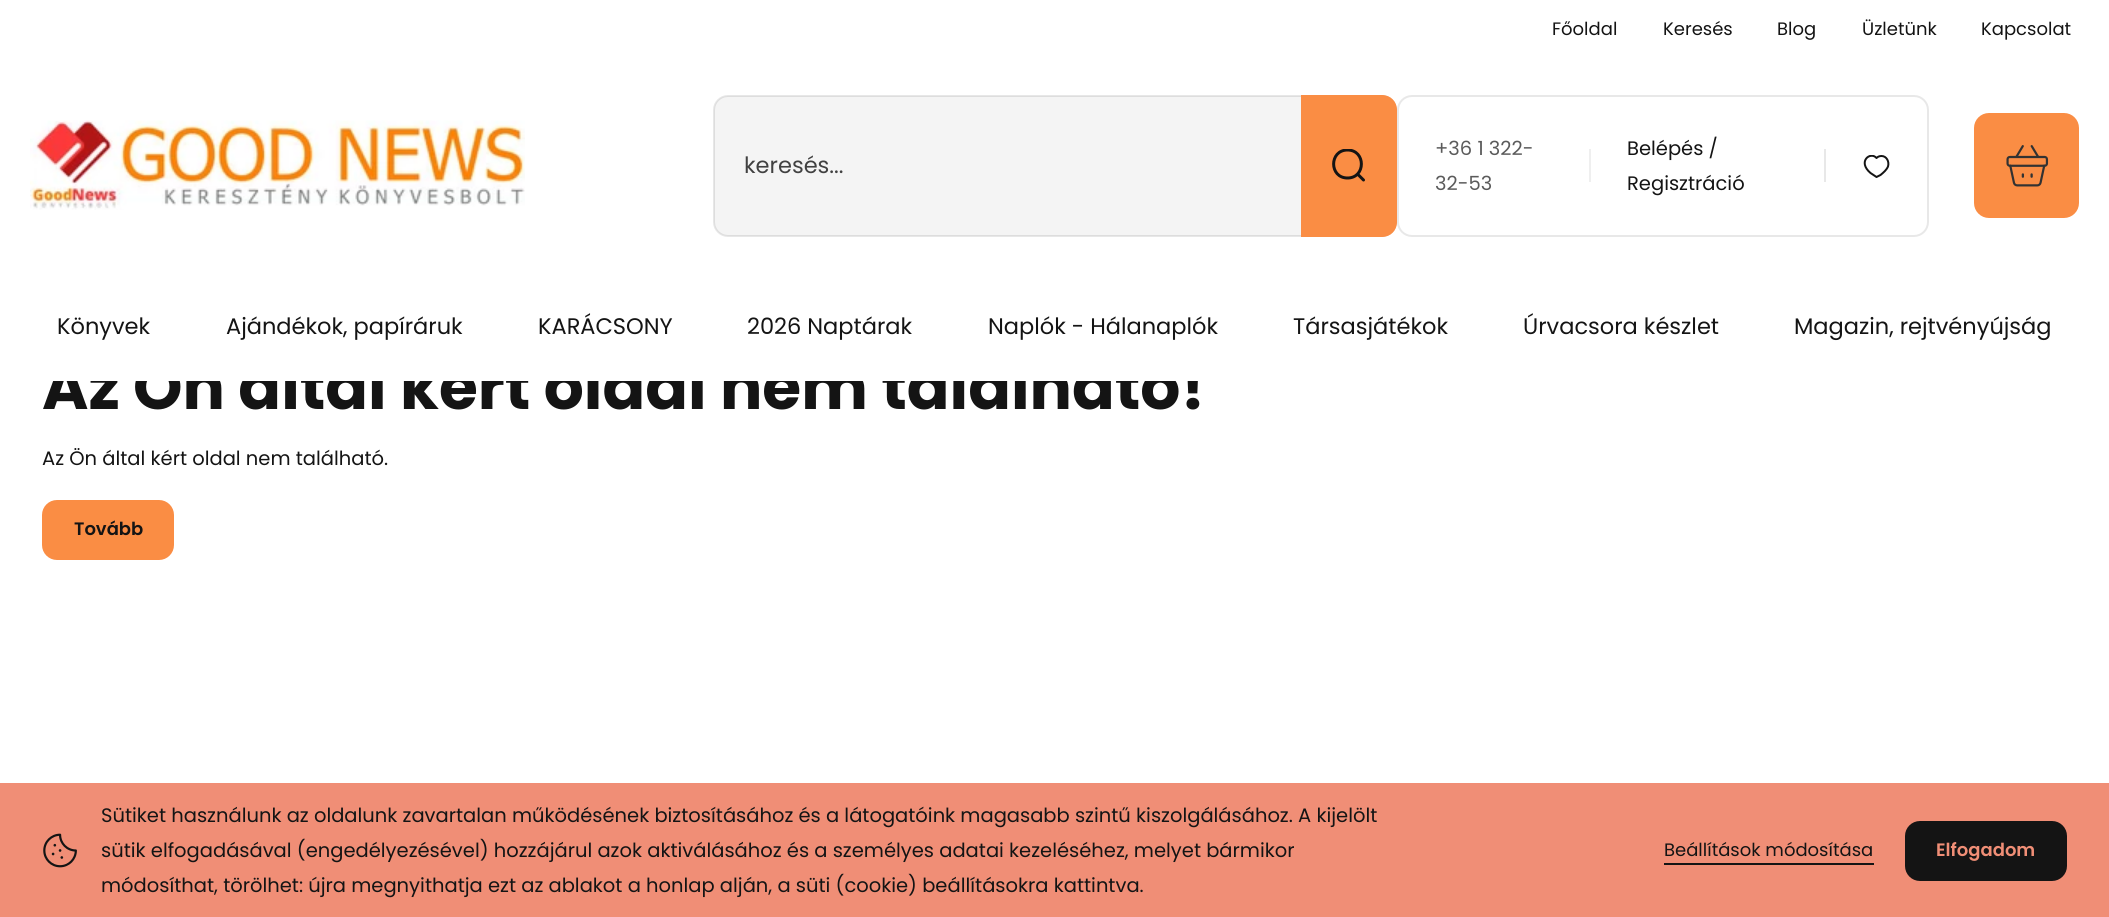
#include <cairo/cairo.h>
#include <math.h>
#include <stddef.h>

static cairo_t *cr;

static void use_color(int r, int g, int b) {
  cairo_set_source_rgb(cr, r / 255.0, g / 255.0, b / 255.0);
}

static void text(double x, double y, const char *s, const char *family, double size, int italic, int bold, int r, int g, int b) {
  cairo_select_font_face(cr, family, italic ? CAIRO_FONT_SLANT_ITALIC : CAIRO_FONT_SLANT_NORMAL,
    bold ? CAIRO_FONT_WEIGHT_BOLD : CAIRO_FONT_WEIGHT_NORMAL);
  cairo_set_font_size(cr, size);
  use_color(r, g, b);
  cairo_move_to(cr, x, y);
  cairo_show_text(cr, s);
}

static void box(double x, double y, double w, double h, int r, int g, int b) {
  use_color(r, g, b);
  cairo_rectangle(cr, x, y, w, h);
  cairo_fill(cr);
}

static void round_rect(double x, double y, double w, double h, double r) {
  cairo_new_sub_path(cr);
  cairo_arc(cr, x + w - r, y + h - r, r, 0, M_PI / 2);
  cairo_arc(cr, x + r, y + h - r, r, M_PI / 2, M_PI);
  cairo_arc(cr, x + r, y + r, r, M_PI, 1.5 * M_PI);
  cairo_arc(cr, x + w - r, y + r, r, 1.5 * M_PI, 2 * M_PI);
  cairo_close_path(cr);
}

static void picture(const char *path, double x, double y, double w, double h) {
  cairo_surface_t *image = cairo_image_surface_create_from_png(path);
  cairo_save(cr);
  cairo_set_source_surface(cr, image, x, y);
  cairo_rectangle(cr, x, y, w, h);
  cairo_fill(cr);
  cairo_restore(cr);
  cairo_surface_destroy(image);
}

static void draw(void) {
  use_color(255, 255, 255);
  cairo_paint(cr);
  picture("img_01.png", 30, 120, 495, 90);
  use_color(244, 244, 244);
  round_rect(714, 96, 681, 140, 14);
  cairo_fill(cr);
  round_rect(714, 96, 682, 140, 14);
  cairo_set_source_rgba(cr, 0.078, 0.078, 0.078, 0.1);
  cairo_stroke(cr);
  use_color(250, 141, 68);
  cairo_new_path(cr);
  cairo_move_to(cr, 1301, 95);
  cairo_line_to(cr, 1382, 95);
  cairo_curve_to(cr, 1390.5, 95, 1397, 101.5, 1397, 110);
  cairo_line_to(cr, 1397, 222);
  cairo_curve_to(cr, 1397, 230.5, 1390.5, 237, 1382, 237);
  cairo_line_to(cr, 1301, 237);
  cairo_close_path(cr);
  cairo_fill(cr);
  cairo_save(cr);
  cairo_rectangle(cr, 1332, 149, 33, 33);
  cairo_clip(cr);
  cairo_new_path(cr);
  cairo_move_to(cr, 1363.5, 180);
  cairo_line_to(cr, 1357.5, 174);
  cairo_move_to(cr, 1347.5, 178);
  cairo_curve_to(cr, 1329, 178, 1329, 150, 1347.5, 150);
  cairo_curve_to(cr, 1366, 150, 1366, 178, 1347.5, 178);
  cairo_close_path(cr);
  use_color(20, 20, 20);
  cairo_set_line_width(cr, 3);
  cairo_set_line_cap(cr, CAIRO_LINE_CAP_ROUND);
  cairo_set_line_join(cr, CAIRO_LINE_JOIN_ROUND);
  cairo_stroke(cr);
  cairo_restore(cr);
  round_rect(1398, 96, 530, 140, 14);
  use_color(232, 232, 232);
  cairo_stroke(cr);
  box(1589, 149, 2, 33, 239, 239, 239);
  box(1824, 149, 2, 33, 232, 232, 232);
  cairo_save(cr);
  cairo_rectangle(cr, 1863, 155, 27, 24);
  cairo_clip(cr);
  cairo_new_path(cr);
  cairo_move_to(cr, 1881.5, 156);
  cairo_curve_to(cr, 1886.5, 156, 1889.5, 161.5, 1888, 166.5);
  cairo_curve_to(cr, 1886.5, 170, 1883.5, 172.5, 1880.5, 175);
  cairo_line_to(cr, 1876.5, 177);
  cairo_line_to(cr, 1870.5, 173);
  cairo_curve_to(cr, 1857, 161.5, 1870.5, 151, 1876.5, 158);
  cairo_curve_to(cr, 1877.5, 157, 1879, 156, 1881.5, 156);
  cairo_close_path(cr);
  use_color(20, 20, 20);
  cairo_set_line_cap(cr, CAIRO_LINE_CAP_ROUND);
  cairo_set_line_join(cr, CAIRO_LINE_JOIN_ROUND);
  cairo_stroke(cr);
  cairo_restore(cr);
  use_color(250, 141, 68);
  round_rect(1975, 114, 103, 103, 14);
  cairo_fill_preserve(cr);
  cairo_stroke(cr);
  picture("img_02.png", 2006, 145, 43, 42);
  round_rect(43, 501, 130, 58, 14);
  cairo_fill_preserve(cr);
  cairo_stroke(cr);
  box(0, 783, 2109, 134, 240, 142, 118);
  picture("img_03.png", 43, 833, 34, 35);
  box(1664, 863, 210, 2, 20, 20, 20);
  round_rect(1906, 822, 160, 58, 14);
  cairo_fill_preserve(cr);
  cairo_stroke(cr);
  text(1552, 35, "Főoldal", "Poppins", 18, 0, 0, 20, 20, 20);
  text(1663, 35, "Keresés", "Poppins", 18, 0, 0, 20, 20, 20);
  text(1777, 35, "Blog", "Poppins", 18, 0, 0, 20, 20, 20);
  text(1862, 35, "Üzletünk", "Poppins", 18, 0, 0, 20, 20, 20);
  text(1981, 35, "Kapcsolat", "Poppins", 18, 0, 0, 20, 20, 20);
  text(744, 173, "keresés...", "Poppins", 22.5, 0, 0, 65, 65, 65);
  text(1435, 155, "+36 1 322-", "Poppins", 19.5, 0, 0, 91, 91, 91);
  text(1435, 190, "32-53", "Poppins", 19.5, 0, 0, 91, 91, 91);
  text(1627, 155, "Belépés /", "Poppins", 19.5, 0, 0, 20, 20, 20);
  text(1627, 190, "Regisztráció", "Poppins", 19.5, 0, 0, 20, 20, 20);
  text(57, 334, "Könyvek", "Poppins", 22.5, 0, 0, 20, 20, 20);
  text(226, 334, "Ajándékok, papíráruk", "Poppins", 22.5, 0, 0, 20, 20, 20);
  text(538, 334, "KARÁCSONY", "Poppins", 22.5, 0, 0, 20, 20, 20);
  text(747, 334, "2026 Naptárak", "Poppins", 22.5, 0, 0, 20, 20, 20);
  text(988, 334, "Naplók - Hálanaplók", "Poppins", 22.5, 0, 0, 20, 20, 20);
  text(1293, 334, "Társasjátékok", "Poppins", 22.5, 0, 0, 20, 20, 20);
  text(1523, 334, "Úrvacsora készlet", "Poppins", 22.5, 0, 0, 20, 20, 20);
  text(1794, 334, "Magazin, rejtvényújság", "Poppins", 22.5, 0, 0, 20, 20, 20);
  text(42, 409, "Az Ön által kért oldal nem található!", "Poppins", 63, 0, 1, 20, 20, 20);
  box(53, 351, 1146, 30, 255, 255, 255);
  text(42, 465, "Az Ön által kért oldal nem található.", "Poppins", 19.5, 0, 0, 20, 20, 20);
  text(74, 535, "Tovább", "Poppins SemiBold", 18, 0, 0, 20, 20, 20);
  text(101, 822, "Sütiket használunk az oldalunk zavartalan működésének biztosításához és a látogatóink magasabb szintű kiszolgálásához. A kijelölt", "Poppins", 19.5, 0, 0, 20, 20, 20);
  text(101, 857, "sütik elfogadásával (engedélyezésével) hozzájárul azok aktiválásához és a személyes adatai kezeléséhez, melyet bármikor", "Poppins", 19.5, 0, 0, 20, 20, 20);
  text(101, 892, "módosíthat, törölhet: újra megnyithatja ezt az ablakot a honlap alján, a süti (cookie) beállításokra kattintva.", "Poppins", 19.5, 0, 0, 20, 20, 20);
  text(1664, 856, "Beállítások módosítása", "Poppins", 18, 0, 0, 20, 20, 20);
  text(1936, 856, "Elfogadom", "Poppins SemiBold", 18, 0, 0, 240, 142, 118);
}

int main(void) {
  cairo_surface_t *surface = cairo_image_surface_create(CAIRO_FORMAT_RGB24, 2109, 917);
  cr = cairo_create(surface);
  cairo_font_options_t *options = cairo_font_options_create();
  cairo_font_options_set_hint_metrics(options, CAIRO_HINT_METRICS_OFF);
  cairo_font_options_set_hint_style(options, CAIRO_HINT_STYLE_NONE);
  cairo_set_font_options(cr, options);
  cairo_set_miter_limit(cr, 4);
  draw();
  cairo_surface_write_to_png(surface, "out.png");
  cairo_font_options_destroy(options);
  cairo_destroy(cr);
  cairo_surface_destroy(surface);
  return 0;
}
